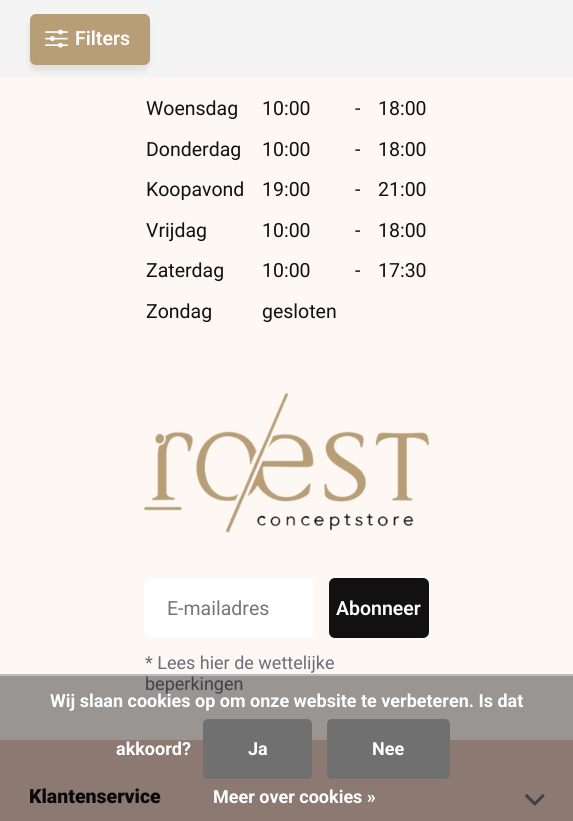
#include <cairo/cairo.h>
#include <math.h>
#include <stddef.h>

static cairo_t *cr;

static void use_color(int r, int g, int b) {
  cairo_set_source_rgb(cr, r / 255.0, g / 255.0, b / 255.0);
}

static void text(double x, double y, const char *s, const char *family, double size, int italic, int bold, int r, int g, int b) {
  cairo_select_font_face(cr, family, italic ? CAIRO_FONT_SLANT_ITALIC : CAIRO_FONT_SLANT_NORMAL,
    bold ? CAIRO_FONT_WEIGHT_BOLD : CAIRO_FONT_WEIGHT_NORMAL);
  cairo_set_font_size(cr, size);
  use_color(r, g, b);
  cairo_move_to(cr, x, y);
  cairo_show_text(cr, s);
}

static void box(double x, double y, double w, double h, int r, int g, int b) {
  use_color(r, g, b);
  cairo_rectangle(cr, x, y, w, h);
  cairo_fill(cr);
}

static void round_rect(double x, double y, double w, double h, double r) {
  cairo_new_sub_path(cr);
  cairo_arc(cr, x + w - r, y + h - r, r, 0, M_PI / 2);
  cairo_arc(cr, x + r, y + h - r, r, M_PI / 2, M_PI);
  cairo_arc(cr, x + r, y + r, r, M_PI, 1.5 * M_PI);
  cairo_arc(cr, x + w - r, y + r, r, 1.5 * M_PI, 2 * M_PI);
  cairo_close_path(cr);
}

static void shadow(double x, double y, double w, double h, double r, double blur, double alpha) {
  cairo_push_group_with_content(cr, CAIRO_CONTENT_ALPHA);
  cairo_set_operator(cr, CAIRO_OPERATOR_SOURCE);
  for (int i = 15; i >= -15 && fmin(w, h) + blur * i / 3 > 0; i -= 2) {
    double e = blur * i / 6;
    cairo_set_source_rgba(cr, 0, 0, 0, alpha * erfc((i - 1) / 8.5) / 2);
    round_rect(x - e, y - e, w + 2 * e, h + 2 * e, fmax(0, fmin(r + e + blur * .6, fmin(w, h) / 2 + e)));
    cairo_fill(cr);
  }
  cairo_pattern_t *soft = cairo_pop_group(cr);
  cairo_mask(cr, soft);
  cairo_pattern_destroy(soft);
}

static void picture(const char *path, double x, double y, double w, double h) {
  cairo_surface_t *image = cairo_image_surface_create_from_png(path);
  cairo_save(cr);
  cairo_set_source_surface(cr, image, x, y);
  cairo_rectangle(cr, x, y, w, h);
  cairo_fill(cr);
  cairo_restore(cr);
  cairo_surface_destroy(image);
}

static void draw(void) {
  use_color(233, 204, 190);
  cairo_paint(cr);
  box(0, 0, 573, 78, 244, 244, 244);
  box(0, 78, 573, 662, 253, 248, 244);
  use_color(0, 0, 0);
  shadow(29, 20, 120, 51, 6, 3, 0.08);
  use_color(183, 158, 119);
  round_rect(30, 14, 120, 51, 6);
  cairo_fill(cr);
  picture("img_01.png", 45, 29, 23, 19);
  picture("img_02.png", 144, 393, 285, 140);
  use_color(255, 255, 255);
  round_rect(144, 578, 170, 60, 6);
  cairo_fill(cr);
  use_color(17, 17, 17);
  round_rect(329, 578, 100, 60, 6);
  cairo_fill(cr);
  picture("img_03.png", 525, 794, 20, 12);
  box(0, 674, 573, 2, 187, 187, 187);
  text(75, 45, "Filters", "Roboto SemiBold", 19.5, 0, 0, 255, 255, 255);
  text(146, 115, "Woensdag", "Roboto", 19.5, 0, 0, 17, 17, 17);
  text(262, 115, "10:00", "Roboto", 19.5, 0, 0, 17, 17, 17);
  text(355, 115, "-", "Roboto", 19.5, 0, 0, 17, 17, 17);
  text(378, 115, "18:00", "Roboto", 19.5, 0, 0, 17, 17, 17);
  text(146, 156, "Donderdag", "Roboto", 19.5, 0, 0, 17, 17, 17);
  text(262, 156, "10:00", "Roboto", 19.5, 0, 0, 17, 17, 17);
  text(355, 156, "-", "Roboto", 19.5, 0, 0, 17, 17, 17);
  text(378, 156, "18:00", "Roboto", 19.5, 0, 0, 17, 17, 17);
  text(146, 196, "Koopavond", "Roboto", 19.5, 0, 0, 17, 17, 17);
  text(262, 196, "19:00", "Roboto", 19.5, 0, 0, 17, 17, 17);
  text(355, 196, "-", "Roboto", 19.5, 0, 0, 17, 17, 17);
  text(378, 196, "21:00", "Roboto", 19.5, 0, 0, 17, 17, 17);
  text(146, 237, "Vrijdag", "Roboto", 19.5, 0, 0, 17, 17, 17);
  text(262, 237, "10:00", "Roboto", 19.5, 0, 0, 17, 17, 17);
  text(355, 237, "-", "Roboto", 19.5, 0, 0, 17, 17, 17);
  text(378, 237, "18:00", "Roboto", 19.5, 0, 0, 17, 17, 17);
  text(146, 277, "Zaterdag", "Roboto", 19.5, 0, 0, 17, 17, 17);
  text(262, 277, "10:00", "Roboto", 19.5, 0, 0, 17, 17, 17);
  text(355, 277, "-", "Roboto", 19.5, 0, 0, 17, 17, 17);
  text(378, 277, "17:30", "Roboto", 19.5, 0, 0, 17, 17, 17);
  text(146, 318, "Zondag", "Roboto", 19.5, 0, 0, 17, 17, 17);
  text(262, 318, "gesloten", "Roboto", 19.5, 0, 0, 17, 17, 17);
  text(167, 615, "E-mailadres", "Roboto", 19.5, 0, 0, 117, 117, 117);
  text(336, 615, "Abonneer", "Roboto SemiBold", 19.5, 0, 0, 255, 255, 255);
  text(145, 669, "* Lees hier de wettelijke", "Roboto", 18, 0, 0, 108, 108, 124);
  text(145, 690, "beperkingen", "Roboto", 18, 0, 0, 108, 108, 124);
  text(29, 803, "Klantenservice", "Roboto Black", 19.5, 0, 0, 17, 17, 17);
  cairo_set_source_rgba(cr, 0, 0, 0, 0.4);
  cairo_rectangle(cr, 0, 676, 573, 145);
  cairo_fill(cr);
  text(50, 707, "Wij slaan cookies op om onze website te verbeteren. Is dat", "Roboto", 18, 0, 1, 255, 255, 255);
  text(116, 755, "akkoord?", "Roboto", 18, 0, 1, 255, 255, 255);
  use_color(112, 112, 112);
  round_rect(203, 719, 109, 60, 5);
  cairo_fill(cr);
  text(248, 755, "Ja", "Roboto", 18, 0, 1, 255, 255, 255);
  use_color(112, 112, 112);
  round_rect(327, 719, 123, 60, 5);
  cairo_fill(cr);
  text(372, 755, "Nee", "Roboto", 18, 0, 1, 255, 255, 255);
  text(213, 803, "Meer over cookies »", "Roboto", 18, 0, 1, 255, 255, 255);
}

int main(void) {
  cairo_surface_t *surface = cairo_image_surface_create(CAIRO_FORMAT_RGB24, 573, 821);
  cr = cairo_create(surface);
  cairo_font_options_t *options = cairo_font_options_create();
  cairo_font_options_set_hint_metrics(options, CAIRO_HINT_METRICS_OFF);
  cairo_font_options_set_hint_style(options, CAIRO_HINT_STYLE_NONE);
  cairo_set_font_options(cr, options);
  cairo_set_miter_limit(cr, 4);
  draw();
  cairo_surface_write_to_png(surface, "out.png");
  cairo_font_options_destroy(options);
  cairo_destroy(cr);
  cairo_surface_destroy(surface);
  return 0;
}
